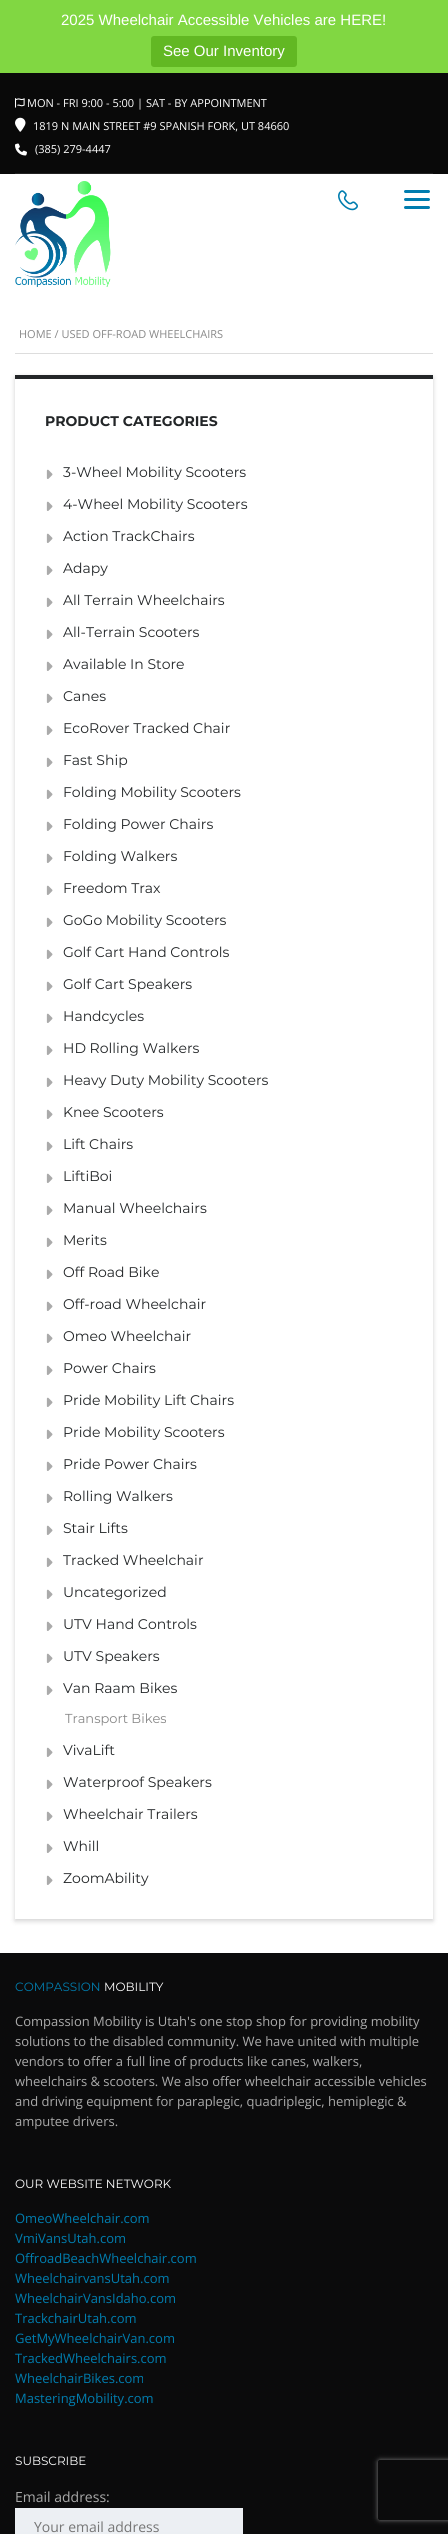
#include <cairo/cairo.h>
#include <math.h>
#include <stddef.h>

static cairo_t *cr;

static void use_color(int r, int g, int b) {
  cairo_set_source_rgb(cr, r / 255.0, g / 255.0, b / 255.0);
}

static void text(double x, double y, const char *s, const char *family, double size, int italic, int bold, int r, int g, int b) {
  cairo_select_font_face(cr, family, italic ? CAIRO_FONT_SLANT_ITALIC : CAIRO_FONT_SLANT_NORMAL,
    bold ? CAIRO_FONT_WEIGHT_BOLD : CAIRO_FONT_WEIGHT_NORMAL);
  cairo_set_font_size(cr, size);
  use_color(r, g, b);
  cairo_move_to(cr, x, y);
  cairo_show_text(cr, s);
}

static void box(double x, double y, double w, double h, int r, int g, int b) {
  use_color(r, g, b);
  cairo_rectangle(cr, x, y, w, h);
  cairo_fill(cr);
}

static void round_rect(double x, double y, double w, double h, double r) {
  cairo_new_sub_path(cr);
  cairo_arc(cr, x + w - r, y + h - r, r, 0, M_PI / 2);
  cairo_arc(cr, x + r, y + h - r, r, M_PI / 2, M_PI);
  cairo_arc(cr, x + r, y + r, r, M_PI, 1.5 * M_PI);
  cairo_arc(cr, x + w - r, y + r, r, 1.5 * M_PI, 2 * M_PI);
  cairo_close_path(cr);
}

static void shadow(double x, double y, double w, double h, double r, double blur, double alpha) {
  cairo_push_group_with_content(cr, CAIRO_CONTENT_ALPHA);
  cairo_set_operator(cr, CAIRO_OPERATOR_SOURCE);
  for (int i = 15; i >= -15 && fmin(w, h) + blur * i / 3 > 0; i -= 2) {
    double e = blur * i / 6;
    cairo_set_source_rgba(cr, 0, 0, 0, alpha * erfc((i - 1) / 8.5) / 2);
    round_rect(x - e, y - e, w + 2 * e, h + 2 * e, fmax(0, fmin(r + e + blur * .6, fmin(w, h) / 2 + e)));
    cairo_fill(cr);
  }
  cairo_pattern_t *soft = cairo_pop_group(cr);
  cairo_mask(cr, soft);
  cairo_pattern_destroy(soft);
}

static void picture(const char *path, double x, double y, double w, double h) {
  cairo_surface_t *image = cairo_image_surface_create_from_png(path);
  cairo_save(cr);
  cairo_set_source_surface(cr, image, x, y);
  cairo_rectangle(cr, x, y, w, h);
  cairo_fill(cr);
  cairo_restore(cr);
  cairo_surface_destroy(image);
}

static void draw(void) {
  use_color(255, 255, 255);
  cairo_paint(cr);
  box(0, 0, 448, 73, 129, 215, 66);
  use_color(98, 184, 35);
  round_rect(151, 36, 146, 31, 3);
  cairo_fill(cr);
  box(0, 73, 448, 101, 9, 9, 9);
  box(15, 173, 418, 1, 34, 34, 34);
  picture("img_01.png", 15, 98, 10, 10);
  picture("img_02.png", 15, 117, 11, 15);
  picture("img_03.png", 15, 143, 12, 13);
  picture("img_04.png", 15, 181, 96, 106);
  picture("img_05.png", 338, 190, 20, 21);
  use_color(0, 125, 175);
  round_rect(404, 190, 26, 3, 1.5);
  cairo_fill(cr);
  round_rect(404, 198, 26, 3, 1.5);
  cairo_fill(cr);
  round_rect(404, 206, 26, 3, 1.5);
  cairo_fill(cr);
  box(15, 353, 418, 1, 221, 221, 221);
  cairo_save(cr);
  cairo_set_fill_rule(cr, CAIRO_FILL_RULE_EVEN_ODD);
  cairo_new_path(cr);
  cairo_move_to(cr, 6, 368);
  cairo_line_to(cr, 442, 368);
  cairo_line_to(cr, 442, 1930);
  cairo_line_to(cr, 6, 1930);
  cairo_close_path(cr);
  cairo_move_to(cr, 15, 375);
  cairo_line_to(cr, 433, 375);
  cairo_line_to(cr, 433, 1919);
  cairo_line_to(cr, 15, 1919);
  cairo_close_path(cr);
  cairo_clip(cr);
  use_color(0, 0, 0);
  shadow(15, 377, 418, 1544, 0, 2.5, 0.18);
  cairo_restore(cr);
  box(15, 375, 418, 4, 35, 38, 40);
  picture("img_06.png", 46, 469, 7, 10);
  picture("img_06.png", 46, 501, 7, 10);
  picture("img_06.png", 46, 533, 7, 10);
  picture("img_06.png", 46, 565, 7, 10);
  picture("img_06.png", 46, 597, 7, 10);
  picture("img_06.png", 46, 629, 7, 10);
  picture("img_06.png", 46, 661, 7, 10);
  picture("img_06.png", 46, 693, 7, 10);
  picture("img_06.png", 46, 725, 7, 10);
  picture("img_06.png", 46, 757, 7, 10);
  picture("img_06.png", 46, 789, 7, 10);
  picture("img_06.png", 46, 821, 7, 10);
  picture("img_06.png", 46, 853, 7, 10);
  picture("img_06.png", 46, 885, 7, 10);
  picture("img_06.png", 46, 917, 7, 10);
  picture("img_06.png", 46, 949, 7, 10);
  picture("img_06.png", 46, 981, 7, 10);
  picture("img_06.png", 46, 1013, 7, 10);
  picture("img_06.png", 46, 1045, 7, 10);
  picture("img_06.png", 46, 1077, 7, 10);
  picture("img_06.png", 46, 1109, 7, 10);
  picture("img_06.png", 46, 1141, 7, 10);
  picture("img_06.png", 46, 1173, 7, 10);
  picture("img_06.png", 46, 1205, 7, 10);
  picture("img_06.png", 46, 1237, 7, 10);
  picture("img_06.png", 46, 1269, 7, 10);
  picture("img_06.png", 46, 1301, 7, 10);
  picture("img_06.png", 46, 1333, 7, 10);
  picture("img_06.png", 46, 1365, 7, 10);
  picture("img_06.png", 46, 1397, 7, 10);
  picture("img_06.png", 46, 1429, 7, 10);
  picture("img_06.png", 46, 1461, 7, 10);
  picture("img_06.png", 46, 1493, 7, 10);
  picture("img_06.png", 46, 1525, 7, 10);
  picture("img_06.png", 46, 1557, 7, 10);
  picture("img_06.png", 46, 1589, 7, 10);
  picture("img_06.png", 46, 1621, 7, 10);
  picture("img_06.png", 46, 1653, 7, 10);
  picture("img_06.png", 46, 1685, 7, 10);
  picture("img_06.png", 46, 1747, 7, 10);
  picture("img_06.png", 46, 1779, 7, 10);
  picture("img_06.png", 46, 1811, 7, 10);
  picture("img_06.png", 46, 1843, 7, 10);
  picture("img_06.png", 46, 1875, 7, 10);
  box(0, 1953, 448, 581, 11, 11, 12);
  box(15, 2508, 228, 26, 236, 239, 243);
  cairo_save(cr);
  cairo_set_fill_rule(cr, CAIRO_FILL_RULE_EVEN_ODD);
  cairo_new_path(cr);
  cairo_move_to(cr, 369, 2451);
  cairo_line_to(cr, 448, 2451);
  cairo_line_to(cr, 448, 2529);
  cairo_line_to(cr, 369, 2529);
  cairo_close_path(cr);
  cairo_move_to(cr, 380, 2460);
  cairo_line_to(cr, 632, 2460);
  cairo_curve_to(cr, 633, 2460, 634, 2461, 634, 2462);
  cairo_line_to(cr, 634, 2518);
  cairo_curve_to(cr, 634, 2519, 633, 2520, 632, 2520);
  cairo_line_to(cr, 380, 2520);
  cairo_curve_to(cr, 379, 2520, 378, 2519, 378, 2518);
  cairo_line_to(cr, 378, 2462);
  cairo_curve_to(cr, 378, 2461, 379, 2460, 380, 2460);
  cairo_close_path(cr);
  cairo_clip(cr);
  use_color(128, 128, 128);
  shadow(378, 2460, 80, 60, 2, 2.5, 1);
  cairo_restore(cr);
  text(61, 25, "2025 Wheelchair Accessible Vehicles are HERE!", "Liberation Sans", 15, 0, 0, 255, 255, 255);
  text(163, 56, "See Our Inventory", "Liberation Sans", 15, 0, 0, 255, 255, 255);
  text(27, 107, "MON - FRI 9:00 - 5:00 | SAT - BY APPOINTMENT", "Open Sans", 11, 0, 0, 255, 255, 255);
  text(33, 130, "1819 N MAIN STREET #9 SPANISH FORK, UT 84660", "Open Sans", 11, 0, 0, 255, 255, 255);
  text(35, 153, "(385) 279-4447", "Open Sans", 11, 0, 0, 255, 255, 255);
  text(19, 338, "HOME / USED OFF-ROAD WHEELCHAIRS", "Open Sans", 11, 0, 0, 136, 136, 136);
  text(45, 426, "PRODUCT CATEGORIES", "Montserrat", 14, 0, 1, 35, 38, 40);
  text(63, 477, "3-Wheel Mobility Scooters", "Montserrat", 14, 0, 0, 35, 38, 40);
  text(63, 509, "4-Wheel Mobility Scooters", "Montserrat", 14, 0, 0, 35, 38, 40);
  text(63, 541, "Action TrackChairs", "Montserrat", 14, 0, 0, 35, 38, 40);
  text(63, 573, "Adapy", "Montserrat", 14, 0, 0, 35, 38, 40);
  text(63, 605, "All Terrain Wheelchairs", "Montserrat", 14, 0, 0, 35, 38, 40);
  text(63, 637, "All-Terrain Scooters", "Montserrat", 14, 0, 0, 35, 38, 40);
  text(63, 669, "Available In Store", "Montserrat", 14, 0, 0, 35, 38, 40);
  text(63, 701, "Canes", "Montserrat", 14, 0, 0, 35, 38, 40);
  text(63, 733, "EcoRover Tracked Chair", "Montserrat", 14, 0, 0, 35, 38, 40);
  text(63, 765, "Fast Ship", "Montserrat", 14, 0, 0, 35, 38, 40);
  text(63, 797, "Folding Mobility Scooters", "Montserrat", 14, 0, 0, 35, 38, 40);
  text(63, 829, "Folding Power Chairs", "Montserrat", 14, 0, 0, 35, 38, 40);
  text(63, 861, "Folding Walkers", "Montserrat", 14, 0, 0, 35, 38, 40);
  text(63, 893, "Freedom Trax", "Montserrat", 14, 0, 0, 35, 38, 40);
  text(63, 925, "GoGo Mobility Scooters", "Montserrat", 14, 0, 0, 35, 38, 40);
  text(63, 957, "Golf Cart Hand Controls", "Montserrat", 14, 0, 0, 35, 38, 40);
  text(63, 989, "Golf Cart Speakers", "Montserrat", 14, 0, 0, 35, 38, 40);
  text(63, 1021, "Handcycles", "Montserrat", 14, 0, 0, 35, 38, 40);
  text(63, 1053, "HD Rolling Walkers", "Montserrat", 14, 0, 0, 35, 38, 40);
  text(63, 1085, "Heavy Duty Mobility Scooters", "Montserrat", 14, 0, 0, 35, 38, 40);
  text(63, 1117, "Knee Scooters", "Montserrat", 14, 0, 0, 35, 38, 40);
  text(63, 1149, "Lift Chairs", "Montserrat", 14, 0, 0, 35, 38, 40);
  text(63, 1181, "LiftiBoi", "Montserrat", 14, 0, 0, 35, 38, 40);
  text(63, 1213, "Manual Wheelchairs", "Montserrat", 14, 0, 0, 35, 38, 40);
  text(63, 1245, "Merits", "Montserrat", 14, 0, 0, 35, 38, 40);
  text(63, 1277, "Off Road Bike", "Montserrat", 14, 0, 0, 35, 38, 40);
  text(63, 1309, "Off-road Wheelchair", "Montserrat", 14, 0, 0, 35, 38, 40);
  text(63, 1341, "Omeo Wheelchair", "Montserrat", 14, 0, 0, 35, 38, 40);
  text(63, 1373, "Power Chairs", "Montserrat", 14, 0, 0, 35, 38, 40);
  text(63, 1405, "Pride Mobility Lift Chairs", "Montserrat", 14, 0, 0, 35, 38, 40);
  text(63, 1437, "Pride Mobility Scooters", "Montserrat", 14, 0, 0, 35, 38, 40);
  text(63, 1469, "Pride Power Chairs", "Montserrat", 14, 0, 0, 35, 38, 40);
  text(63, 1501, "Rolling Walkers", "Montserrat", 14, 0, 0, 35, 38, 40);
  text(63, 1533, "Stair Lifts", "Montserrat", 14, 0, 0, 35, 38, 40);
  text(63, 1565, "Tracked Wheelchair", "Montserrat", 14, 0, 0, 35, 38, 40);
  text(63, 1597, "Uncategorized", "Montserrat", 14, 0, 0, 35, 38, 40);
  text(63, 1629, "UTV Hand Controls", "Montserrat", 14, 0, 0, 35, 38, 40);
  text(63, 1661, "UTV Speakers", "Montserrat", 14, 0, 0, 35, 38, 40);
  text(63, 1693, "Van Raam Bikes", "Montserrat", 14, 0, 0, 35, 38, 40);
  text(65, 1723, "Transport Bikes", "Montserrat", 13, 0, 0, 136, 136, 136);
  text(63, 1755, "VivaLift", "Montserrat", 14, 0, 0, 35, 38, 40);
  text(63, 1787, "Waterproof Speakers", "Montserrat", 14, 0, 0, 35, 38, 40);
  text(63, 1819, "Wheelchair Trailers", "Montserrat", 14, 0, 0, 35, 38, 40);
  text(63, 1851, "Whill", "Montserrat", 14, 0, 0, 35, 38, 40);
  text(63, 1883, "ZoomAbility", "Montserrat", 14, 0, 0, 35, 38, 40);
  text(15, 1991, "COMPASSION", "Montserrat", 12, 0, 0, 0, 125, 175);
  text(104, 1991, "MOBILITY", "Montserrat", 12, 0, 0, 255, 255, 255);
  text(15, 2026, "Compassion Mobility is Utah's one stop shop for providing mobility", "Open Sans", 13, 0, 0, 170, 170, 170);
  text(15, 2046, "solutions to the disabled community. We have united with multiple", "Open Sans", 13, 0, 0, 170, 170, 170);
  text(15, 2066, "vendors to offer a full line of products like canes, walkers,", "Open Sans", 13, 0, 0, 170, 170, 170);
  text(15, 2086, "wheelchairs & scooters. We also offer wheelchair accessible vehicles", "Open Sans", 13, 0, 0, 170, 170, 170);
  text(15, 2106, "and driving equipment for paraplegic, quadriplegic, hemiplegic &", "Open Sans", 13, 0, 0, 170, 170, 170);
  text(15, 2126, "amputee drivers.", "Open Sans", 13, 0, 0, 170, 170, 170);
  text(15, 2188, "OUR WEBSITE NETWORK", "Montserrat", 12, 0, 0, 255, 255, 255);
  text(15, 2223, "OmeoWheelchair.com", "Open Sans", 13, 0, 0, 0, 125, 175);
  text(15, 2243, "VmiVansUtah.com", "Open Sans", 13, 0, 0, 0, 125, 175);
  text(15, 2263, "OffroadBeachWheelchair.com", "Open Sans", 13, 0, 0, 0, 125, 175);
  text(15, 2283, "WheelchairvansUtah.com", "Open Sans", 13, 0, 0, 0, 125, 175);
  text(15, 2303, "WheelchairVansIdaho.com", "Open Sans", 13, 0, 0, 0, 125, 175);
  text(15, 2323, "TrackchairUtah.com", "Open Sans", 13, 0, 0, 0, 125, 175);
  text(15, 2343, "GetMyWheelchairVan.com", "Open Sans", 13, 0, 0, 0, 125, 175);
  text(15, 2363, "TrackedWheelchairs.com", "Open Sans", 13, 0, 0, 0, 125, 175);
  text(15, 2383, "WheelchairBikes.com", "Open Sans", 13, 0, 0, 0, 125, 175);
  text(15, 2403, "MasteringMobility.com", "Open Sans", 13, 0, 0, 0, 125, 175);
  text(15, 2465, "SUBSCRIBE", "Montserrat", 12, 0, 0, 255, 255, 255);
  text(15, 2502, "Email address:", "Open Sans", 14, 0, 0, 170, 170, 170);
  text(34, 2532, "Your email address", "Open Sans", 14, 0, 0, 117, 117, 117);
}

int main(void) {
  cairo_surface_t *surface = cairo_image_surface_create(CAIRO_FORMAT_RGB24, 448, 2534);
  cr = cairo_create(surface);
  cairo_font_options_t *options = cairo_font_options_create();
  cairo_font_options_set_hint_metrics(options, CAIRO_HINT_METRICS_OFF);
  cairo_font_options_set_hint_style(options, CAIRO_HINT_STYLE_NONE);
  cairo_set_font_options(cr, options);
  cairo_set_miter_limit(cr, 4);
  draw();
  cairo_surface_write_to_png(surface, "out.png");
  cairo_font_options_destroy(options);
  cairo_destroy(cr);
  cairo_surface_destroy(surface);
  return 0;
}
